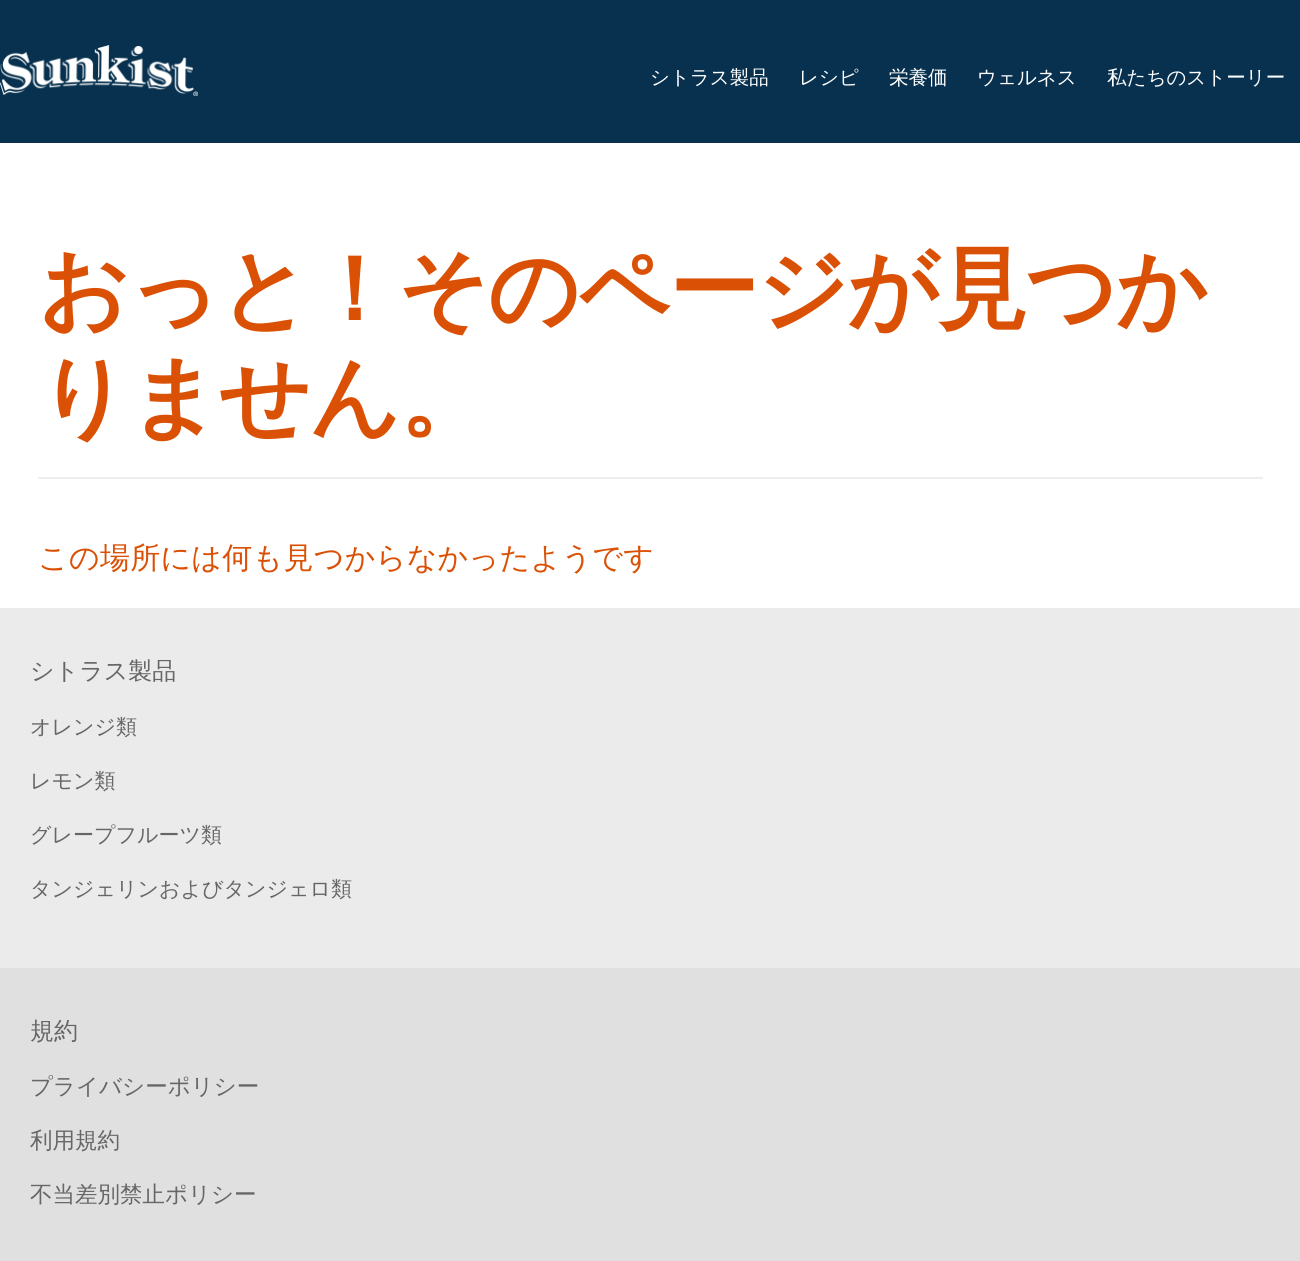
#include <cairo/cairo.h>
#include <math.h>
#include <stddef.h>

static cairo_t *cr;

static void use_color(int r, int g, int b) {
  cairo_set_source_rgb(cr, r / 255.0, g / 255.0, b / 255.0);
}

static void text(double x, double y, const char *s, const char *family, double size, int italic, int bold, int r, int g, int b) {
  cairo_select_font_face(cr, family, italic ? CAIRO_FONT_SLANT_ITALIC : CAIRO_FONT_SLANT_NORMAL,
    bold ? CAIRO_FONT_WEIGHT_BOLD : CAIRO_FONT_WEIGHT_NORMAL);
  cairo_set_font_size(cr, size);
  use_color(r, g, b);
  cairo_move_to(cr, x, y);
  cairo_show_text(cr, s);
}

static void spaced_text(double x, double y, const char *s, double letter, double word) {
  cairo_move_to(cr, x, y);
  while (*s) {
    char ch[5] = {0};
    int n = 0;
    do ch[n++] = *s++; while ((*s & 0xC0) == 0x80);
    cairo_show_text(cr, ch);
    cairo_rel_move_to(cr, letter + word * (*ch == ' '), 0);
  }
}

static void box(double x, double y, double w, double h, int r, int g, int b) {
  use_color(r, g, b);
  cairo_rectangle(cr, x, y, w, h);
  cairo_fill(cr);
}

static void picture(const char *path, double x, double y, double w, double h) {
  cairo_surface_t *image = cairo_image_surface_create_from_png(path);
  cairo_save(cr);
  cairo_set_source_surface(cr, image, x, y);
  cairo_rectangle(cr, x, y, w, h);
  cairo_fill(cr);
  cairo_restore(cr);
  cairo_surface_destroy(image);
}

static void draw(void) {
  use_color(255, 255, 255);
  cairo_paint(cr);
  box(0, 0, 1300, 143, 7, 49, 79);
  picture("img_01.png", 0, 45, 198, 51);
  box(38, 477, 1225, 2, 238, 238, 238);
  box(0, 608, 1300, 360, 235, 235, 235);
  box(0, 968, 1300, 293, 224, 224, 224);
  text(650, 84, "シトラス製品", "WenQuanYi Zen Hei Medium", 19.5, 0, 0, 255, 255, 255);
  text(799, 84, "レシピ", "WenQuanYi Zen Hei Medium", 19.5, 0, 0, 255, 255, 255);
  text(889, 84, "栄養価", "WenQuanYi Zen Hei Medium", 19.5, 0, 0, 255, 255, 255);
  text(977, 84, "ウェルネス", "WenQuanYi Zen Hei Medium", 19.5, 0, 0, 255, 255, 255);
  text(1107, 84, "私たちのストーリー", "WenQuanYi Zen Hei Medium", 19.5, 0, 0, 255, 255, 255);
  cairo_select_font_face(cr, "WenQuanYi Zen Hei", CAIRO_FONT_SLANT_NORMAL, CAIRO_FONT_WEIGHT_BOLD);
  cairo_set_font_size(cr, 90);
  use_color(218, 81, 6);
  spaced_text(38, 320, "おっと！そのページが見つか", -1.75, 0);
  spaced_text(38, 428, "りません。", -1.75, 0);
  cairo_select_font_face(cr, "WenQuanYi Zen Hei Medium", CAIRO_FONT_SLANT_NORMAL, CAIRO_FONT_WEIGHT_NORMAL);
  cairo_set_font_size(cr, 30);
  spaced_text(38, 568, "この場所には何も見つからなかったようです", 0.25, 0);
  text(30, 679, "シトラス製品", "WenQuanYi Zen Hei Medium", 24, 0, 0, 102, 102, 102);
  text(30, 734, "オレンジ類", "WenQuanYi Zen Hei Medium", 21, 0, 0, 102, 102, 102);
  text(30, 788, "レモン類", "WenQuanYi Zen Hei Medium", 21, 0, 0, 102, 102, 102);
  text(30, 842, "グレープフルーツ類", "WenQuanYi Zen Hei Medium", 21, 0, 0, 102, 102, 102);
  text(30, 896, "タンジェリンおよびタンジェロ類", "WenQuanYi Zen Hei Medium", 21, 0, 0, 102, 102, 102);
  text(30, 1039, "規約", "WenQuanYi Zen Hei Medium", 24, 0, 0, 102, 102, 102);
  text(30, 1094, "プライバシーポリシー", "WenQuanYi Zen Hei Medium", 22.5, 0, 0, 102, 102, 102);
  text(30, 1148, "利用規約", "WenQuanYi Zen Hei Medium", 22.5, 0, 0, 102, 102, 102);
  text(30, 1202, "不当差別禁止ポリシー", "WenQuanYi Zen Hei Medium", 22.5, 0, 0, 102, 102, 102);
}

int main(void) {
  cairo_surface_t *surface = cairo_image_surface_create(CAIRO_FORMAT_RGB24, 1300, 1261);
  cr = cairo_create(surface);
  cairo_font_options_t *options = cairo_font_options_create();
  cairo_font_options_set_hint_metrics(options, CAIRO_HINT_METRICS_OFF);
  cairo_font_options_set_hint_style(options, CAIRO_HINT_STYLE_NONE);
  cairo_set_font_options(cr, options);
  cairo_set_miter_limit(cr, 4);
  draw();
  cairo_surface_write_to_png(surface, "out.png");
  cairo_font_options_destroy(options);
  cairo_destroy(cr);
  cairo_surface_destroy(surface);
  return 0;
}
